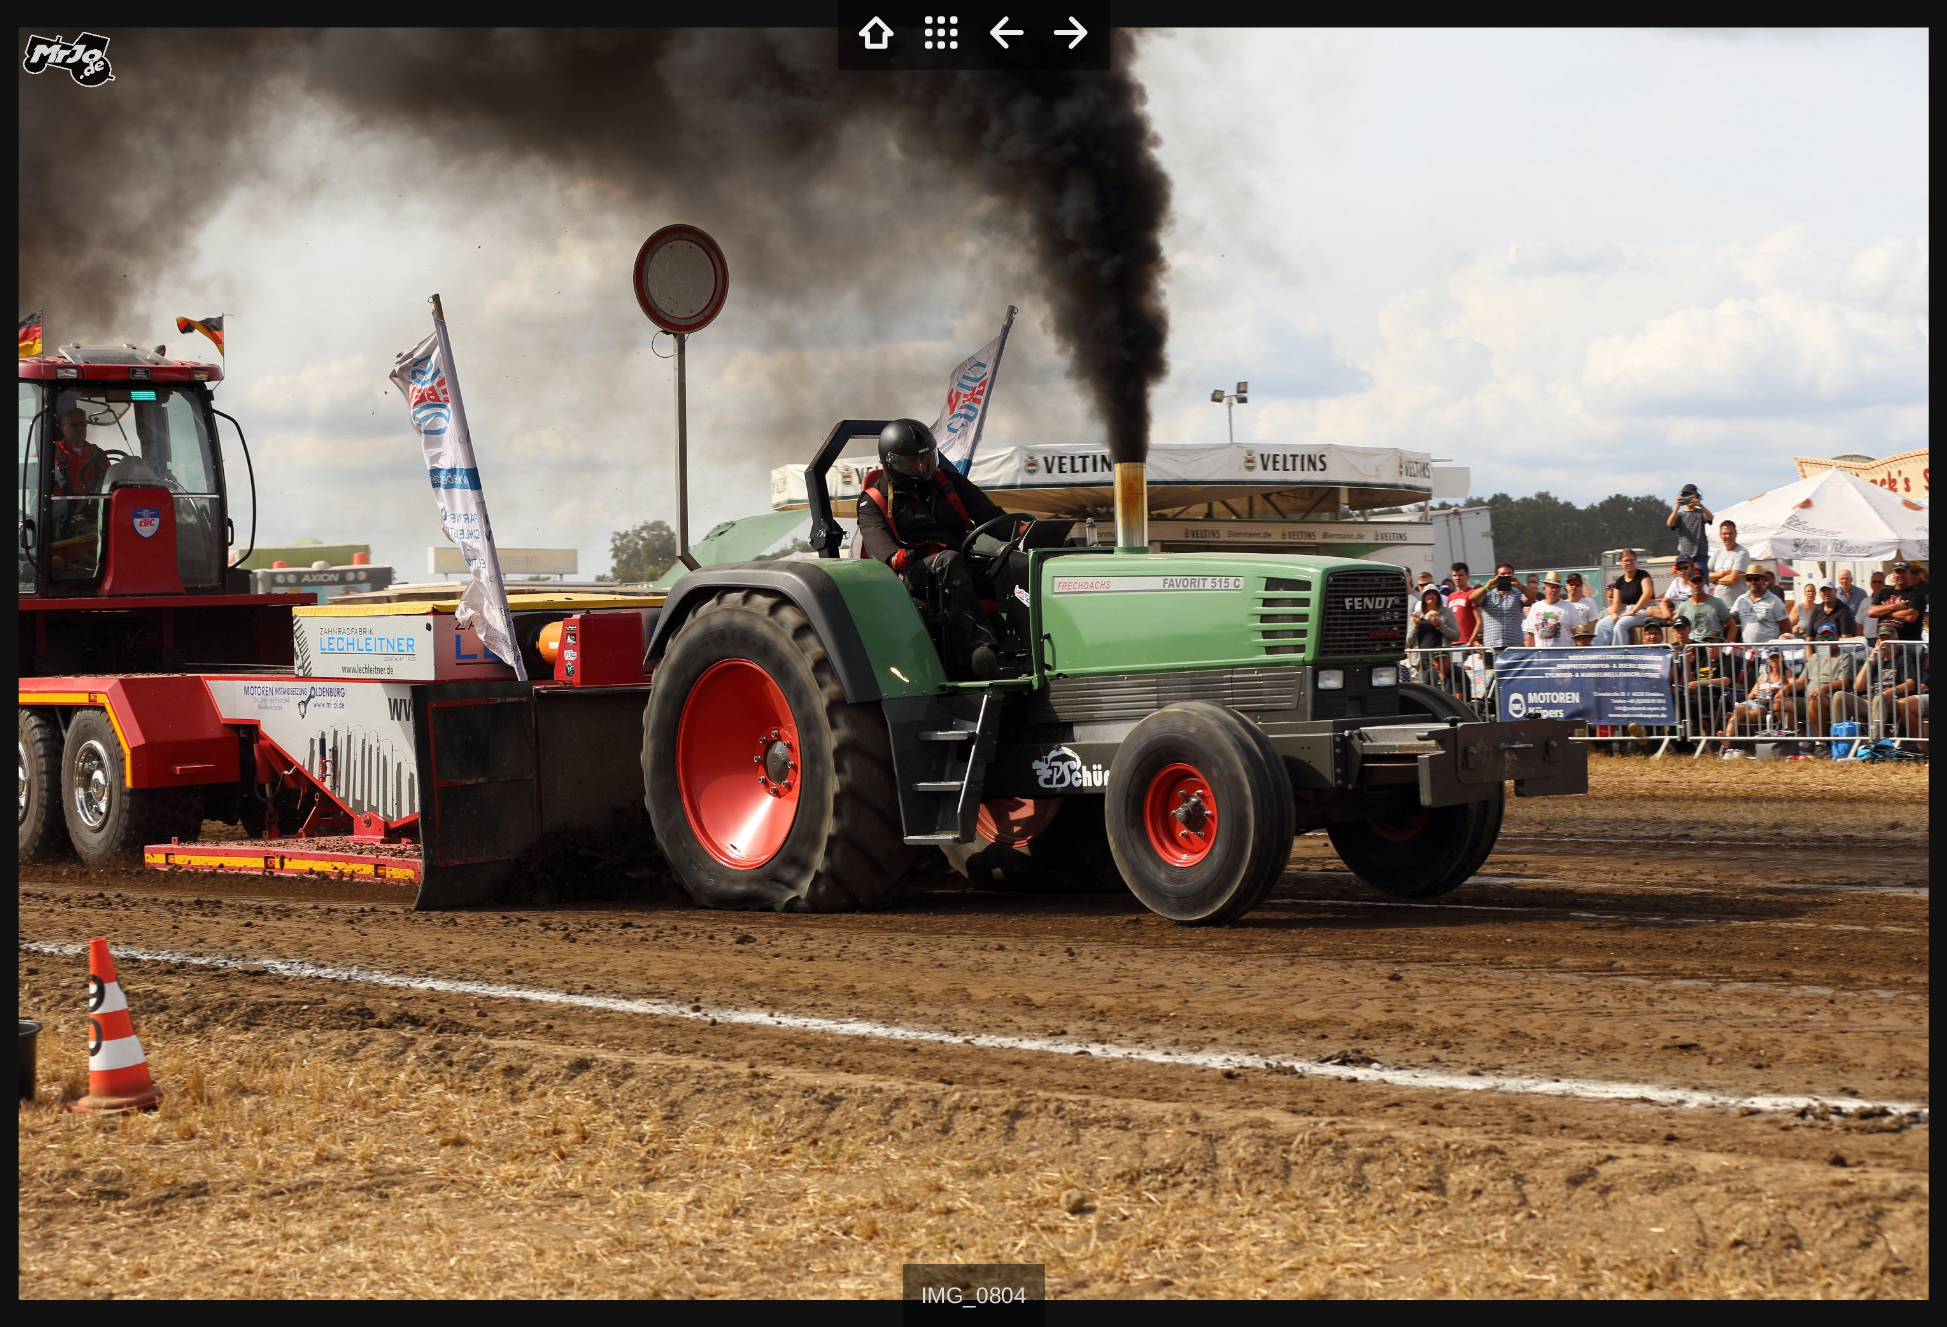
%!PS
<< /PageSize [1947 1327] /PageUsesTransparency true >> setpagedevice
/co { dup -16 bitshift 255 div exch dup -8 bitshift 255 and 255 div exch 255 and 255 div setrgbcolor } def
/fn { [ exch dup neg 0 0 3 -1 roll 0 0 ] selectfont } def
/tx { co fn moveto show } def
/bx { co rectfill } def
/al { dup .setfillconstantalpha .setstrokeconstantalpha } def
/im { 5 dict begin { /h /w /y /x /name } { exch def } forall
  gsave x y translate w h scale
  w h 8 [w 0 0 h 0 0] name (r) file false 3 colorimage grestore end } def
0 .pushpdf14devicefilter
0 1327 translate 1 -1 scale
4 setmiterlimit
0 0 1947 1327 16#111111 bx
(media/5.raw) 18 27 1911 1273 im
0.5 al
838 0 272 70 16#000000 bx
1 al
(media/1.raw) 858 16 36 33 im
(media/2.raw) 925 16 33 33 im
(media/3.raw) 990 16 34 33 im
(media/4.raw) 1053 16 35 33 im
0.5 al
903 1264 142 63 16#000000 bx
1 al
(IMG_0804) 921 1303 /LiberationSans-Regular 22.5 16#DDDDDD tx
.poppdf14devicefilter showpage
